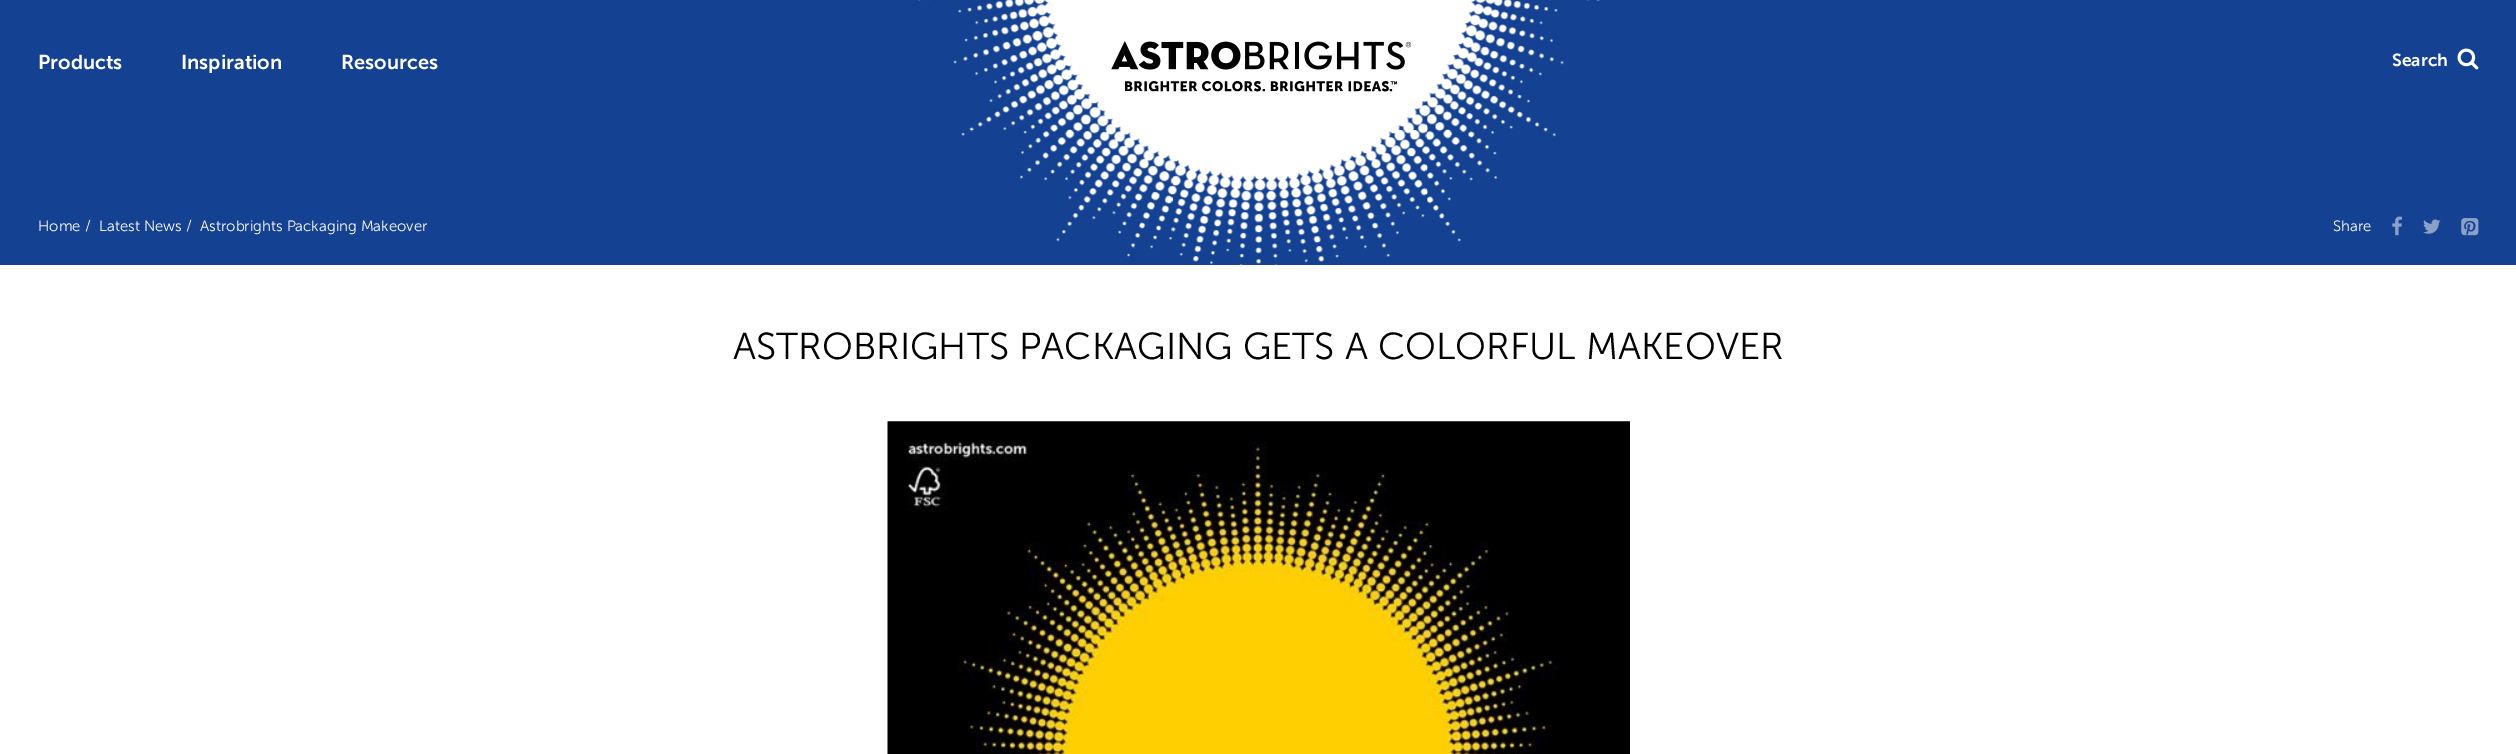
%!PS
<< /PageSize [2516 754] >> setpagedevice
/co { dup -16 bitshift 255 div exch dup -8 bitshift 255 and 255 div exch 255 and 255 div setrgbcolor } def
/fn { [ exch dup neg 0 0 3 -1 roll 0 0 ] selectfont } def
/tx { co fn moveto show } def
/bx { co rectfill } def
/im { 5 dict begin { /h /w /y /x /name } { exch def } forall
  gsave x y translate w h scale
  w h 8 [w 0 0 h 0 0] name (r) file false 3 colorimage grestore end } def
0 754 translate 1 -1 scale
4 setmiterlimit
0 0 2516 754 16#FFFFFF bx
0 0 2516 265 16#144191 bx
(media/1.raw) 918 0 682 265 im
(media/2.raw) 1111 41 300 29 im
(media/3.raw) 1125 81 273 11 im
(media/4.raw) 2457 48 22 22 im
(media/5.raw) 2392 216 10 20 im
(media/6.raw) 2423 219 18 15 im
(media/7.raw) 2461 218 18 18 im
(media/8.raw) 887 421 743 333 im
(Products) 38 69 /MuseoSans-SemiBold 20 16#FFFFFF tx
(Inspiration) 181 69 /MuseoSans-SemiBold 20 16#FFFFFF tx
(Resources) 341 69 /MuseoSans-SemiBold 20 16#FFFFFF tx
(Search) 2392 66 /MuseoSans-SemiBold 17.5 16#FFFFFF tx
(Home /) 38 231 /MuseoSans-Light 15 16#FFFFFF tx
(Latest News /) 99 231 /MuseoSans-Light 15 16#FFFFFF tx
(Astrobrights Packaging Makeover) 200 231 /MuseoSans-Light 15 16#FFFFFF tx
(Share) 2333 231 /MuseoSans-Light 15 16#FFFFFF tx
(ASTROBRIGHTS PACKAGING GETS A COLORFUL MAKEOVER) 733 359 /MuseoSans-Light 37.5 16#000000 tx
showpage
